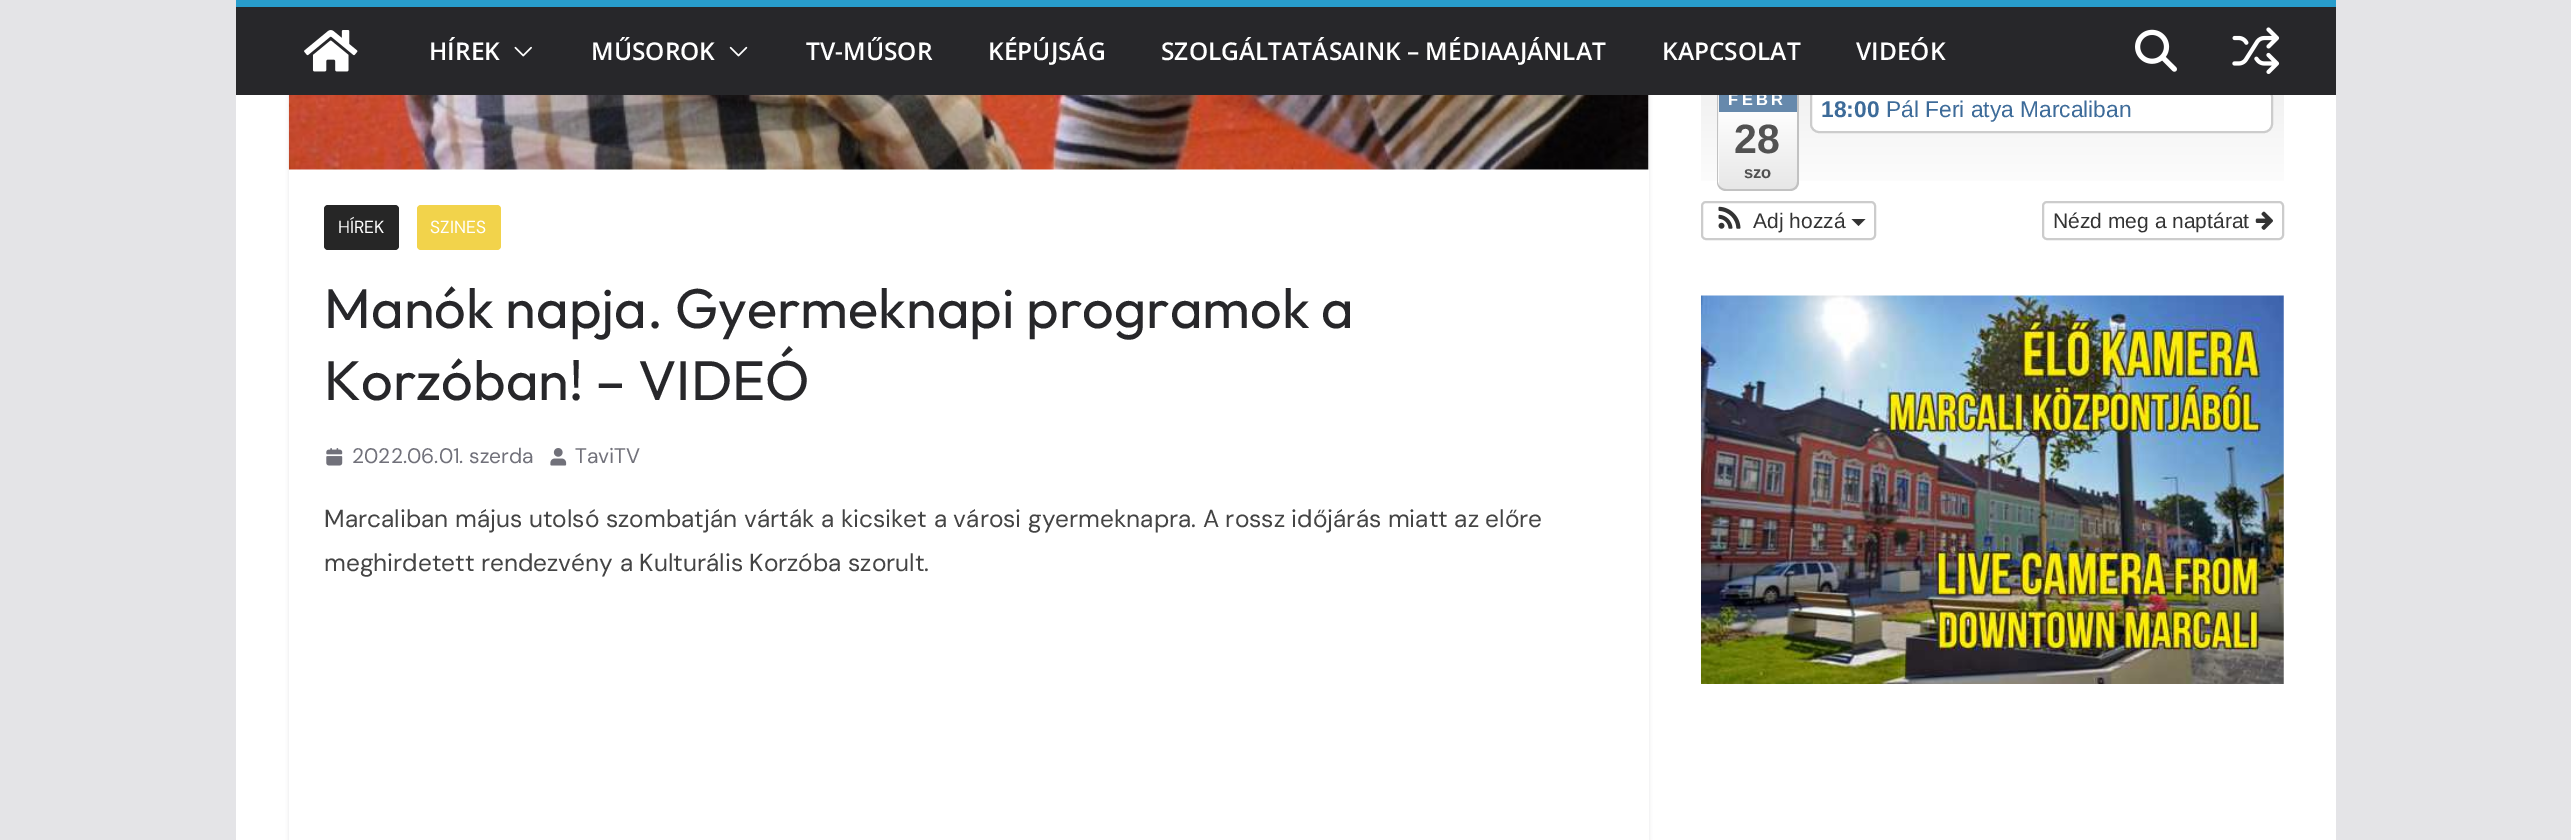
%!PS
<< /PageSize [2571 840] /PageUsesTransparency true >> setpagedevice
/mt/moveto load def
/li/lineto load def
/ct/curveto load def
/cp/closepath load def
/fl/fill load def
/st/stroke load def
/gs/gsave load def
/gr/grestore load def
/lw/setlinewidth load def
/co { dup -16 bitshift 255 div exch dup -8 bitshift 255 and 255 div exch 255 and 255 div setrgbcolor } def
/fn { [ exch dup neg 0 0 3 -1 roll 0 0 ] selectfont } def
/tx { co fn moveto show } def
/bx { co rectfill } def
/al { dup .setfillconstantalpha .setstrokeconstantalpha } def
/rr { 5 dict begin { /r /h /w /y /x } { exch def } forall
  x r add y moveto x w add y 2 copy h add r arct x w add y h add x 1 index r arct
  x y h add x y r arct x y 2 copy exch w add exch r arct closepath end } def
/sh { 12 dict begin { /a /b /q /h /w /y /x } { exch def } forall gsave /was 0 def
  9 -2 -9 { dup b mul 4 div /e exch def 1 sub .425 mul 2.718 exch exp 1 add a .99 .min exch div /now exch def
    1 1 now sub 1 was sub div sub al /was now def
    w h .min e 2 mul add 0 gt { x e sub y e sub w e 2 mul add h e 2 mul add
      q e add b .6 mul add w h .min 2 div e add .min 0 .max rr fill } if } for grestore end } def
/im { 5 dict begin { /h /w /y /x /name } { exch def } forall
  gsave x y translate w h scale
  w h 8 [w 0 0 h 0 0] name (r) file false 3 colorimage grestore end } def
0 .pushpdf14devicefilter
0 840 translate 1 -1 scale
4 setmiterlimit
0 0 2571 840 16#E4E4E7 bx
236 95 2100 745 16#FFFFFF bx
gs
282 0 mt 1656 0 li 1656 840 li 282 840 li cp 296 -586 mt 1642 -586 li 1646 -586 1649 -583 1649 -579 ct 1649 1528 li 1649 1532 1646 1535 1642 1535 ct 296 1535 li 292 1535 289 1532 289 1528 ct 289 -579 li 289 -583 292 -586 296 -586 ct cp eoclip newpath
16#E4E4E7 co
289 -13 1360 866 7 2 1 sh
gr
236 0 2100 7 16#289DCC bx
gs 1701 95 mt 2284 95 li 2284 181 li 1701 181 li cp clip newpath
<< /ShadingType 2 /ColorSpace /DeviceRGB /Coords [1992 77 1992 201] /Extend [true true] /Function << /FunctionType 3 /Domain [0 1] /Functions [<< /FunctionType 2 /Domain [0 1] /C0 [.949 .949 .949] /C1 [.949 .949 .949] /N 1 >> << /FunctionType 2 /Domain [0 1] /C0 [.949 .949 .949] /C1 [1 1 1] /N 1 >>] /Bounds [.18] /Encode [0 1 0 1] >> >> shfill gr
gs
1717 88 82 103 9 rr clip newpath
gs 1719 112 mt 1797 112 li 1797 189 li 1719 189 li cp clip newpath
<< /ShadingType 2 /ColorSpace /DeviceRGB /Coords [1758 88 1758 189] /Extend [true true] /Function << /FunctionType 3 /Domain [0 1] /Functions [<< /FunctionType 2 /Domain [0 1] /C0 [1 1 1] /C1 [1 1 1] /N 1 >> << /FunctionType 2 /Domain [0 1] /C0 [1 1 1] /C1 [.906 .906 .906] /N 1 >>] /Bounds [.2] /Encode [0 1 0 1] >> >> shfill gr
gr
16#C2C2C2 co
1726 88 mt 1790 88 li 1795 88 1799 91 1799 96 ct 1799 182 li 1799 187 1795 191 1790 191 ct 1726 191 li 1721 191 1717 187 1717 182 ct 1717 96 li 1717 91 1721 88 1726 88 ct cp 1726 88 mt 1790 88 li 1794 88 1797 91 1797 96 ct 1797 182 li 1797 186 1794 189 1790 189 ct 1726 189 li 1722 189 1718 186 1718 182 ct 1718 96 li 1718 91 1722 88 1726 88 ct cp eofill
1719 95 78 17 16#6689AC bx
16#FFFFFF co
1811 89 461 43 8 rr gs fl gr
16#CCCCCC co
2 lw
st
1702 202 173 37 4 rr st
(media/6.raw) 1718 206 23 23 im
16#333333 co
1851.5 219 mt 1865.5 219 li 1858.5 226 li cp fl
16#CCCCCC co
2043 202 240 37 4 rr st
(media/7.raw) 2255 211 18 19 im
(media/8.raw) 1701 295 583 389 im
(media/9.raw) 288 95 1361 75 im
16#262626 co
324 205 75 45 4 rr fl
16#F2D34B co
417 205 84 45 4 rr fl
(media/10.raw) 326 448 17 18 im
(media/11.raw) 550 448 17 18 im
/LiberationSans-Bold 16.5 fn
16#FFFFFF co
1728 105 mt 3.5 0 (FEBR) ashow
236 7 2100 88 16#27272A bx
(VIDEÓK) 1856 60 /OpenSans-SemiBold 24.5 16#FFFFFF tx
(KAPCSOLAT) 1662 60 /OpenSans-SemiBold 24.5 16#FFFFFF tx
(SZOLGÁLTATÁSAINK – MÉDIAAJÁNLAT) 1161 60 /OpenSans-SemiBold 24.5 16#FFFFFF tx
(KÉPÚJSÁG) 988 60 /OpenSans-SemiBold 24.5 16#FFFFFF tx
(TV-MŰSOR) 806 60 /OpenSans-SemiBold 24.5 16#FFFFFF tx
(media/3.raw) 729 46 19 11 im
(MŰSOROK) 591 60 /OpenSans-SemiBold 24.5 16#FFFFFF tx
(media/2.raw) 514 46 18 11 im
(HÍREK) 429 60 /OpenSans-SemiBold 24.5 16#FFFFFF tx
(media/4.raw) 2135 29 42 43 im
(media/5.raw) 2232 27 48 47 im
(media/1.raw) 304 30 54 42 im
(28) 1734 153 /LiberationSans-Bold 41 16#525252 tx
(szo) 1744 178 /LiberationSans-Bold 16.5 16#525252 tx
(18:00) 1821 117 /LiberationSans-Bold 22.75 16#3D6B99 tx
(Pál Feri atya Marcaliban) 1886 117 /LiberationSans-Regular 22.75 16#3D6B99 tx
(Adj hozzá) 1753 228 /LiberationSans-Regular 21 16#333333 tx
(Nézd meg a naptárat) 2053 228 /LiberationSans-Regular 21 16#333333 tx
(HÍREK) 338 233 /DMSans-Regular 17.5 16#FFFFFF tx
(SZINES) 430 233 /DMSans-Regular 17.5 16#FFFFFF tx
(Manók napja. Gyermeknapi programok a) 324 328 /Outfit-Thin 56 16#27272A tx
(Korzóban! – VIDEÓ) 324 400 /Outfit-Thin 56 16#27272A tx
(2022.06.01. szerda) 352 463 /DMSans-Regular 21 16#71717A tx
(TaviTV) 575 463 /DMSans-Regular 21 16#71717A tx
(Marcaliban május utolsó szombatján várták a kicsiket a városi gyermeknapra. A rossz időjárás miatt az előre) 324 527 /DMSans-Regular 24.5 16#444444 tx
(meghirdetett rendezvény a Kulturális Korzóba szorult.) 324 571 /DMSans-Regular 24.5 16#444444 tx
.poppdf14devicefilter showpage
